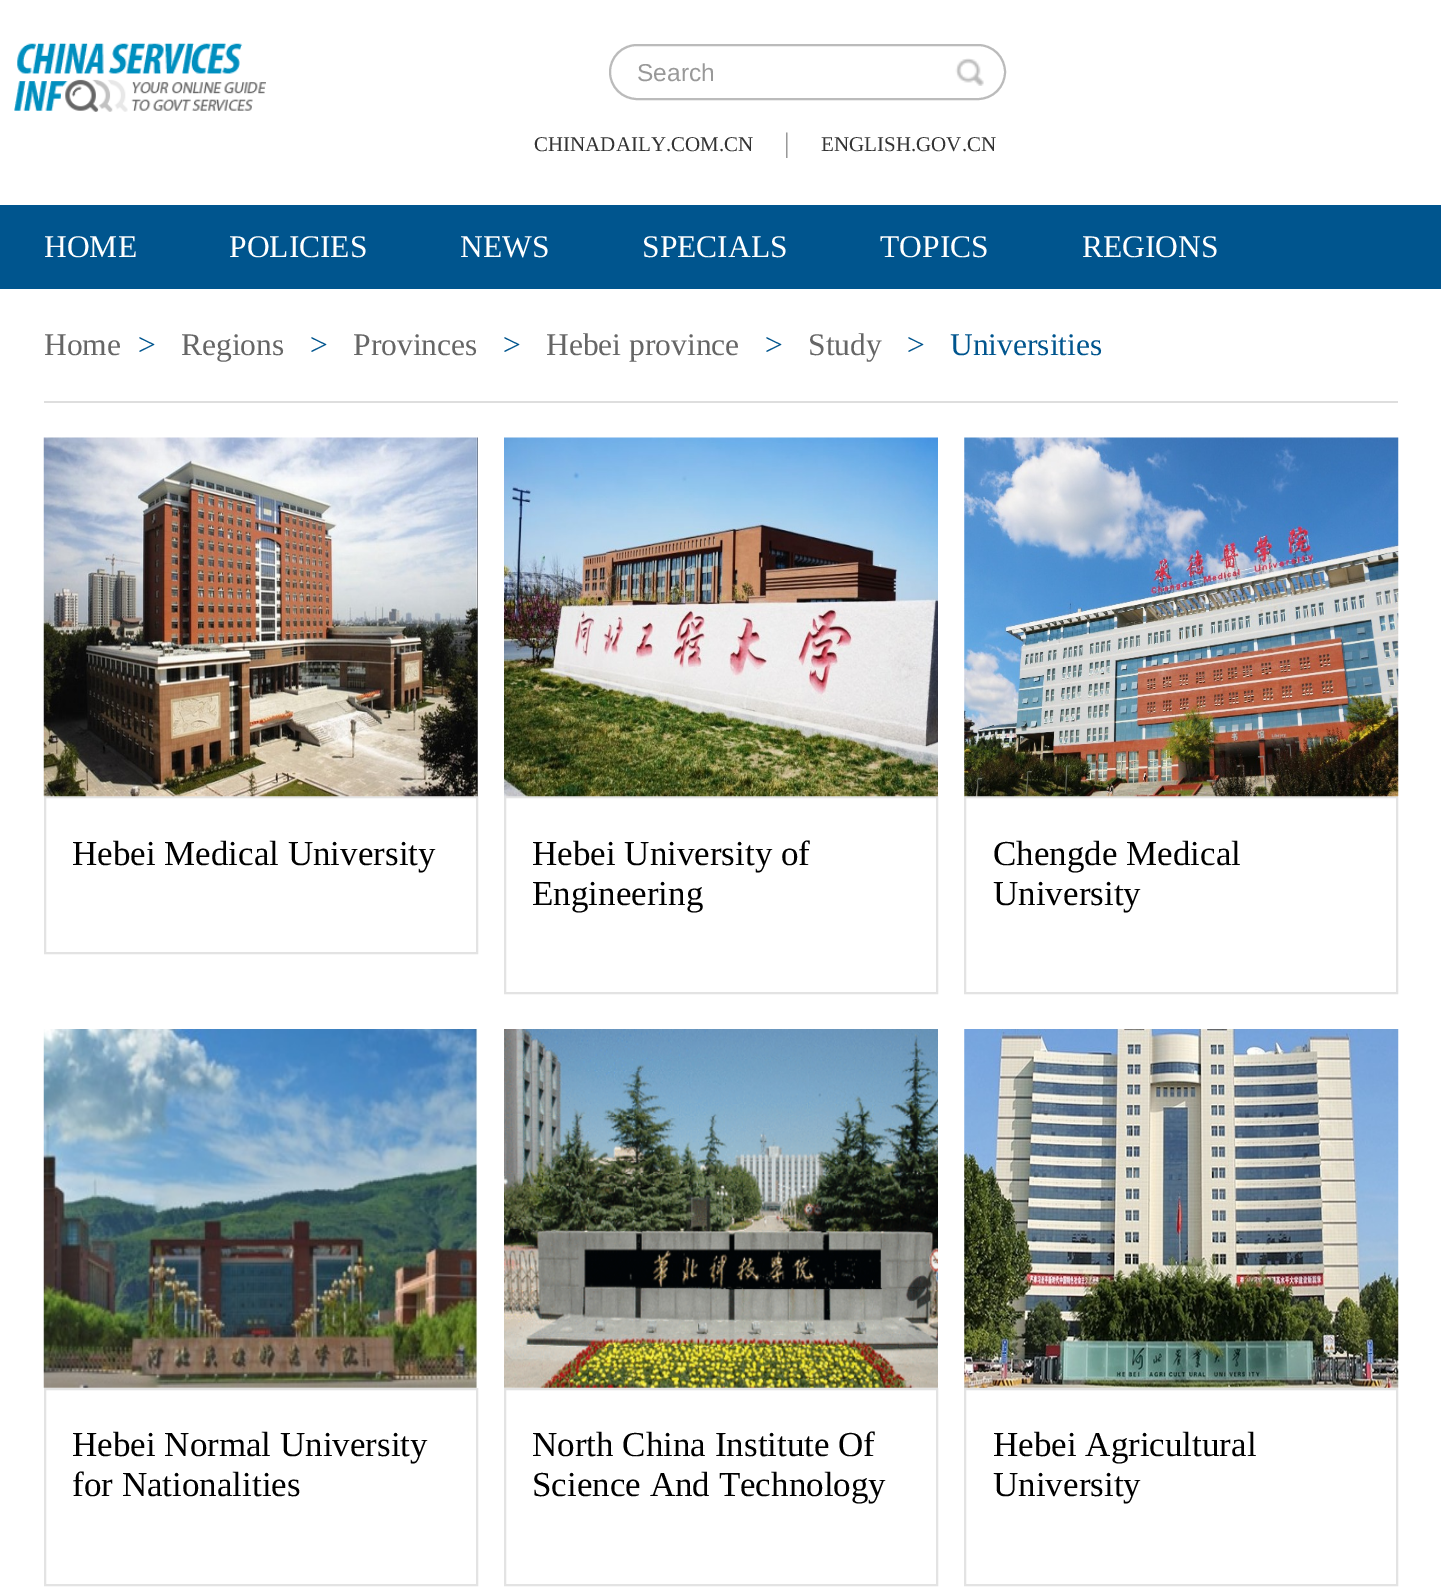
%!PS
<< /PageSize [1441 1596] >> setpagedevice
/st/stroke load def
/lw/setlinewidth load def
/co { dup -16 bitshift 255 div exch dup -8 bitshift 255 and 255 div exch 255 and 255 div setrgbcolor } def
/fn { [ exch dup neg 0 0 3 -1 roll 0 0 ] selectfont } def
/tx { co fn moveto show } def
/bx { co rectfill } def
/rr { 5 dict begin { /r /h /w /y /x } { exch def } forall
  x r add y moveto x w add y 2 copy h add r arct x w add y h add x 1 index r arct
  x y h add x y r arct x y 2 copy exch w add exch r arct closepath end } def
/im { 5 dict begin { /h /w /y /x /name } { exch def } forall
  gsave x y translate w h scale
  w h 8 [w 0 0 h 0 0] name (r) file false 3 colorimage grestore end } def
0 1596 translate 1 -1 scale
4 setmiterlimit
0 0 1441 1596 16#FFFFFF bx
(media/1.raw) 14 43 252 69 im
16#BBBBBB co
2 lw
610 45 395 54 27 rr st
(media/2.raw) 955 58 29 28 im
0 205 1441 84 16#00558E bx
44 401 1354 2 16#DEDEDE bx
16#E3E3E3 co
45 797 432 156 rectstroke
(media/3.raw) 43 437 435 360 im
505 797 432 196 rectstroke
(media/4.raw) 504 437 434 360 im
965 797 432 196 rectstroke
(media/5.raw) 964 437 435 360 im
(media/6.raw) 43 1029 435 359 im
45 1389 432 196 rectstroke
(media/7.raw) 504 1029 434 359 im
505 1389 432 196 rectstroke
(media/8.raw) 964 1029 435 359 im
965 1389 432 196 rectstroke
(Search) 637 81 /LiberationSans-Regular 24.5 16#999999 tx
(CHINADAILY.COM.CN) 534 151 /LiberationSerif-Regular 21 16#333333 tx
(|) 784 152 /LiberationSerif-Regular 28 16#999999 tx
(ENGLISH.GOV.CN) 821 151 /LiberationSerif-Regular 21 16#333333 tx
(HOME) 44 257 /LiberationSerif-Regular 31.5 16#FFFFFF tx
(POLICIES) 229 257 /LiberationSerif-Regular 31.5 16#FFFFFF tx
(NEWS) 460 257 /LiberationSerif-Regular 31.5 16#FFFFFF tx
(SPECIALS) 642 257 /LiberationSerif-Regular 31.5 16#FFFFFF tx
(TOPICS) 880 257 /LiberationSerif-Regular 31.5 16#FFFFFF tx
(REGIONS) 1082 257 /LiberationSerif-Regular 31.5 16#FFFFFF tx
(Home) 44 355 /LiberationSerif-Regular 31.5 16#666666 tx
(>) 138 355 /LiberationSerif-Regular 31.5 16#00558E tx
(Regions) 181 355 /LiberationSerif-Regular 31.5 16#666666 tx
(>) 310 355 /LiberationSerif-Regular 31.5 16#00558E tx
(Provinces) 353 355 /LiberationSerif-Regular 31.5 16#666666 tx
(>) 503 355 /LiberationSerif-Regular 31.5 16#00558E tx
(Hebei province) 546 355 /LiberationSerif-Regular 31.5 16#666666 tx
(>) 765 355 /LiberationSerif-Regular 31.5 16#00558E tx
(Study) 808 355 /LiberationSerif-Regular 31.5 16#666666 tx
(>) 907 355 /LiberationSerif-Regular 31.5 16#00558E tx
(Universities) 950 355 /LiberationSerif-Regular 31.5 16#00558E tx
(Hebei Medical University) 72 865 /LiberationSerif-Regular 35 16#000000 tx
(Hebei University of) 532 865 /LiberationSerif-Regular 35 16#000000 tx
(Engineering) 532 905 /LiberationSerif-Regular 35 16#000000 tx
(Chengde Medical) 993 865 /LiberationSerif-Regular 35 16#000000 tx
(University) 993 905 /LiberationSerif-Regular 35 16#000000 tx
(Hebei Normal University) 72 1456 /LiberationSerif-Regular 35 16#000000 tx
(for Nationalities) 72 1496 /LiberationSerif-Regular 35 16#000000 tx
(North China Institute Of) 532 1456 /LiberationSerif-Regular 35 16#000000 tx
(Science And Technology) 532 1496 /LiberationSerif-Regular 35 16#000000 tx
(Hebei Agricultural) 993 1456 /LiberationSerif-Regular 35 16#000000 tx
(University) 993 1496 /LiberationSerif-Regular 35 16#000000 tx
showpage
